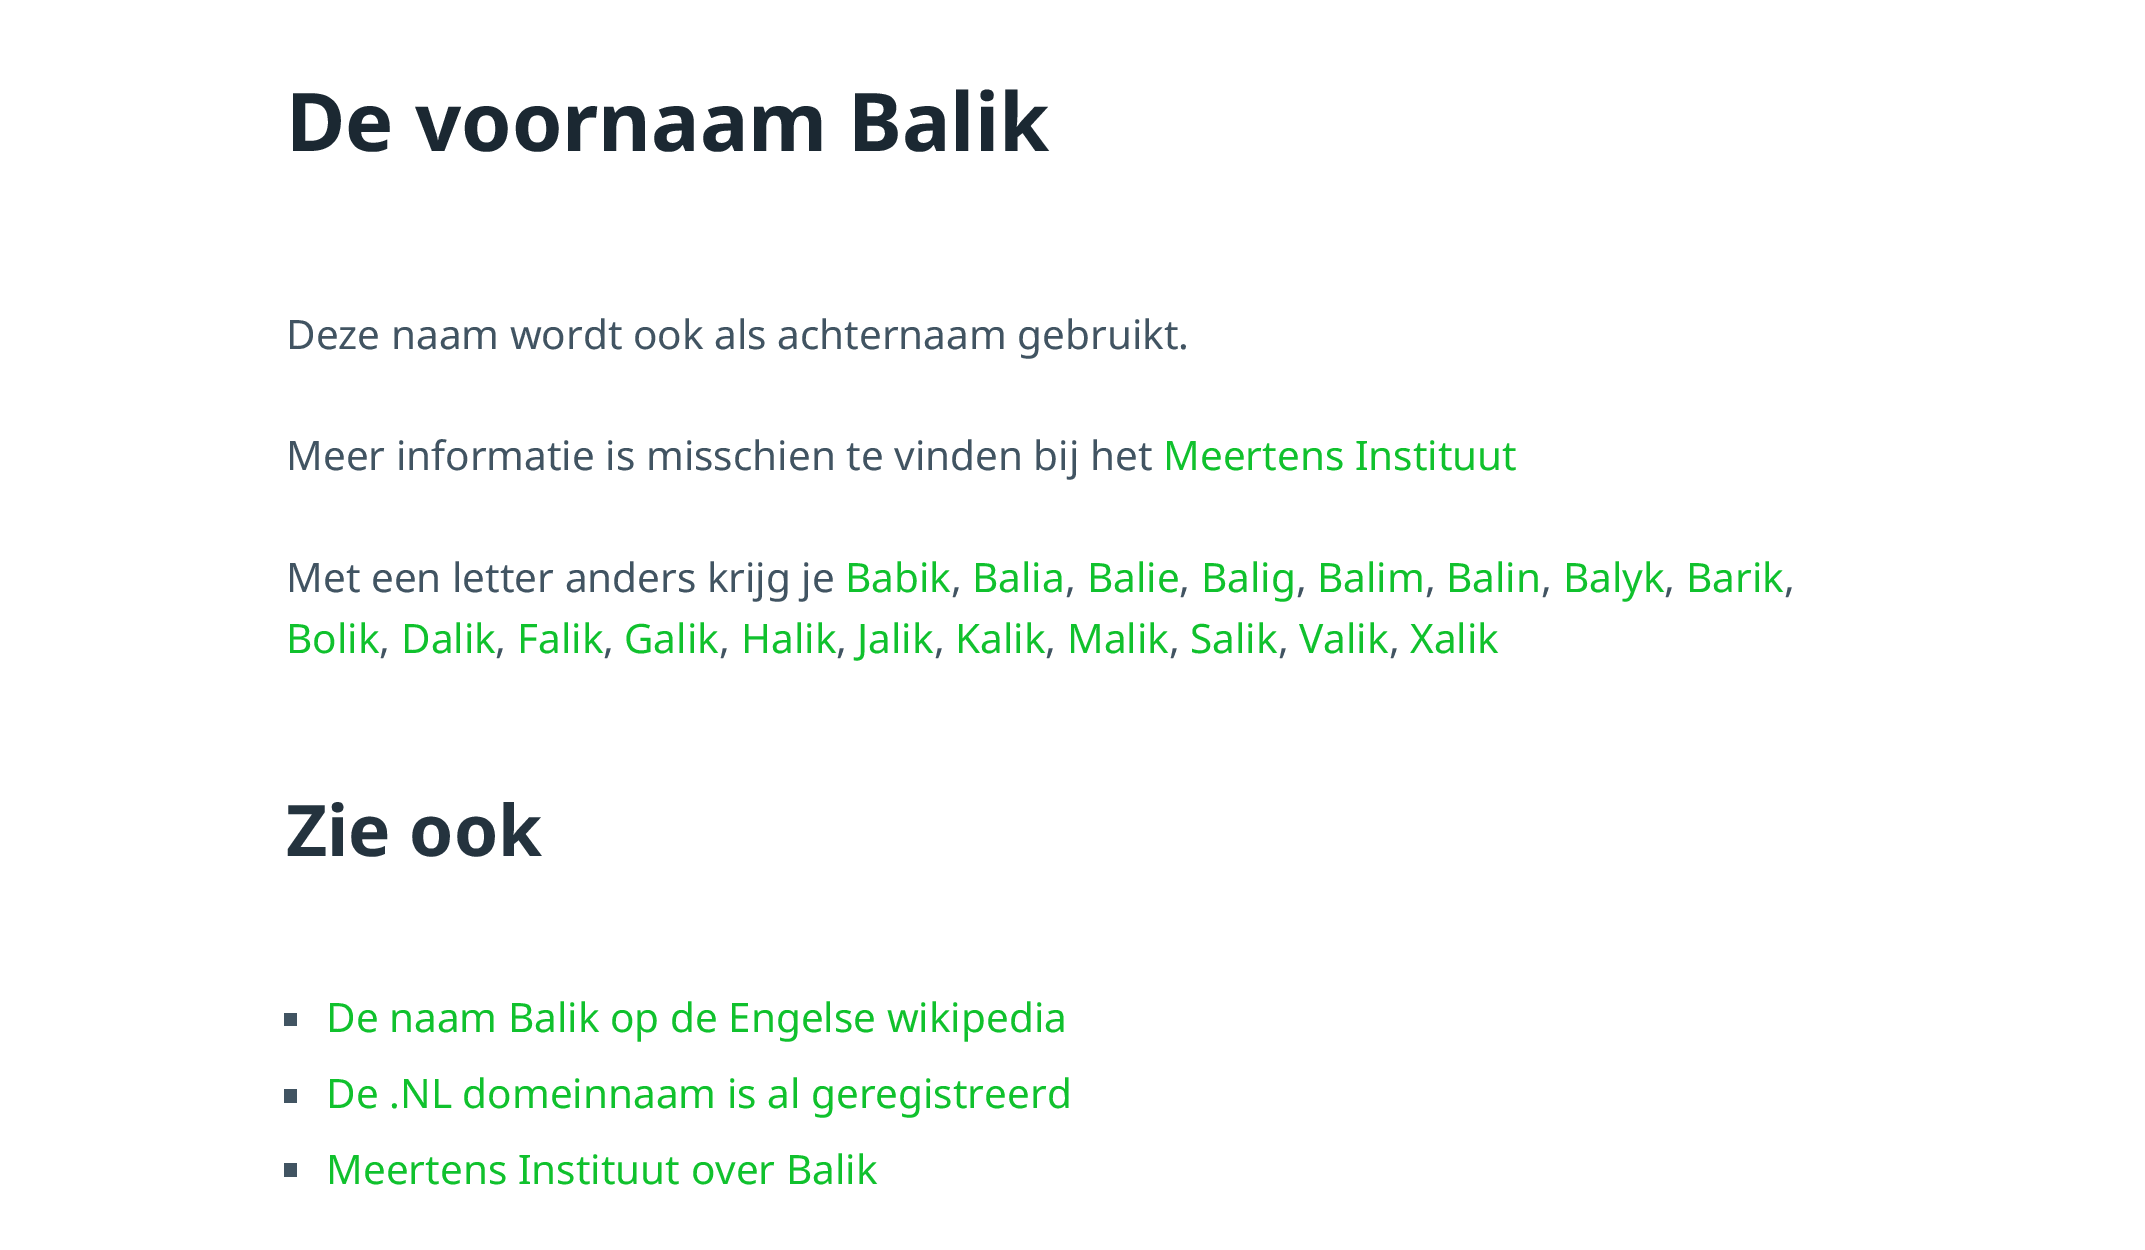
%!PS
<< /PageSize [2145 1250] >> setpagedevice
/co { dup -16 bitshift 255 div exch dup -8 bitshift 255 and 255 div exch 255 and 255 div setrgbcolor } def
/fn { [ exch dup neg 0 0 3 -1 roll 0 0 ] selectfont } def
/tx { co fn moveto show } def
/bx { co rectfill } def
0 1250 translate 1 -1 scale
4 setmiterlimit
0 0 2145 1250 16#FFFFFF bx
284 1013 13 13 16#415462 bx
284 1089 13 14 16#415462 bx
284 1163 13 14 16#415462 bx
(De voornaam Balik) 286 151 /NotoSans-Bold 81 16#1B2832 tx
(Deze naam wordt ook als achternaam gebruikt.) 286 349 /NotoSans-Regular 40.5 16#415462 tx
(Meer informatie is misschien te vinden bij het) 286 470 /NotoSans-Regular 40.5 16#415462 tx
(Meertens Instituut) 1163 470 /NotoSans-Regular 40.5 16#10C12D tx
(Met een letter anders krijg je) 286 592 /NotoSans-Regular 40.5 16#415462 tx
(Babik) 845 592 /NotoSans-Regular 40.5 16#10C12D tx
(,) 951 592 /NotoSans-Regular 40.5 16#415462 tx
(Balia) 972 592 /NotoSans-Regular 40.5 16#10C12D tx
(,) 1065 592 /NotoSans-Regular 40.5 16#415462 tx
(Balie) 1087 592 /NotoSans-Regular 40.5 16#10C12D tx
(,) 1179 592 /NotoSans-Regular 40.5 16#415462 tx
(Balig) 1201 592 /NotoSans-Regular 40.5 16#10C12D tx
(,) 1296 592 /NotoSans-Regular 40.5 16#415462 tx
(Balim) 1317 592 /NotoSans-Regular 40.5 16#10C12D tx
(,) 1425 592 /NotoSans-Regular 40.5 16#415462 tx
(Balin) 1446 592 /NotoSans-Regular 40.5 16#10C12D tx
(,) 1541 592 /NotoSans-Regular 40.5 16#415462 tx
(Balyk) 1563 592 /NotoSans-Regular 40.5 16#10C12D tx
(,) 1664 592 /NotoSans-Regular 40.5 16#415462 tx
(Barik) 1686 592 /NotoSans-Regular 40.5 16#10C12D tx
(,) 1784 592 /NotoSans-Regular 40.5 16#415462 tx
(Bolik) 286 653 /NotoSans-Regular 40.5 16#10C12D tx
(,) 379 653 /NotoSans-Regular 40.5 16#415462 tx
(Dalik) 401 653 /NotoSans-Regular 40.5 16#10C12D tx
(,) 495 653 /NotoSans-Regular 40.5 16#415462 tx
(Falik) 517 653 /NotoSans-Regular 40.5 16#10C12D tx
(,) 603 653 /NotoSans-Regular 40.5 16#415462 tx
(Galik) 624 653 /NotoSans-Regular 40.5 16#10C12D tx
(,) 719 653 /NotoSans-Regular 40.5 16#415462 tx
(Halik) 741 653 /NotoSans-Regular 40.5 16#10C12D tx
(,) 836 653 /NotoSans-Regular 40.5 16#415462 tx
(Jalik) 857 653 /NotoSans-Regular 40.5 16#10C12D tx
(,) 934 653 /NotoSans-Regular 40.5 16#415462 tx
(Kalik) 955 653 /NotoSans-Regular 40.5 16#10C12D tx
(,) 1045 653 /NotoSans-Regular 40.5 16#415462 tx
(Malik) 1067 653 /NotoSans-Regular 40.5 16#10C12D tx
(,) 1169 653 /NotoSans-Regular 40.5 16#415462 tx
(Salik) 1190 653 /NotoSans-Regular 40.5 16#10C12D tx
(,) 1278 653 /NotoSans-Regular 40.5 16#415462 tx
(Valik) 1299 653 /NotoSans-Regular 40.5 16#10C12D tx
(,) 1389 653 /NotoSans-Regular 40.5 16#415462 tx
(Xalik) 1410 653 /NotoSans-Regular 40.5 16#10C12D tx
(Zie ook) 286 856 /NotoSans-Bold 71 16#24333E tx
(De naam Balik op de Engelse wikipedia) 326 1032 /NotoSans-Regular 40.5 16#10C12D tx
(De .NL domeinnaam is al geregistreerd) 326 1108 /NotoSans-Regular 40.5 16#10C12D tx
(Meertens Instituut over Balik) 326 1184 /NotoSans-Regular 40.5 16#10C12D tx
showpage
